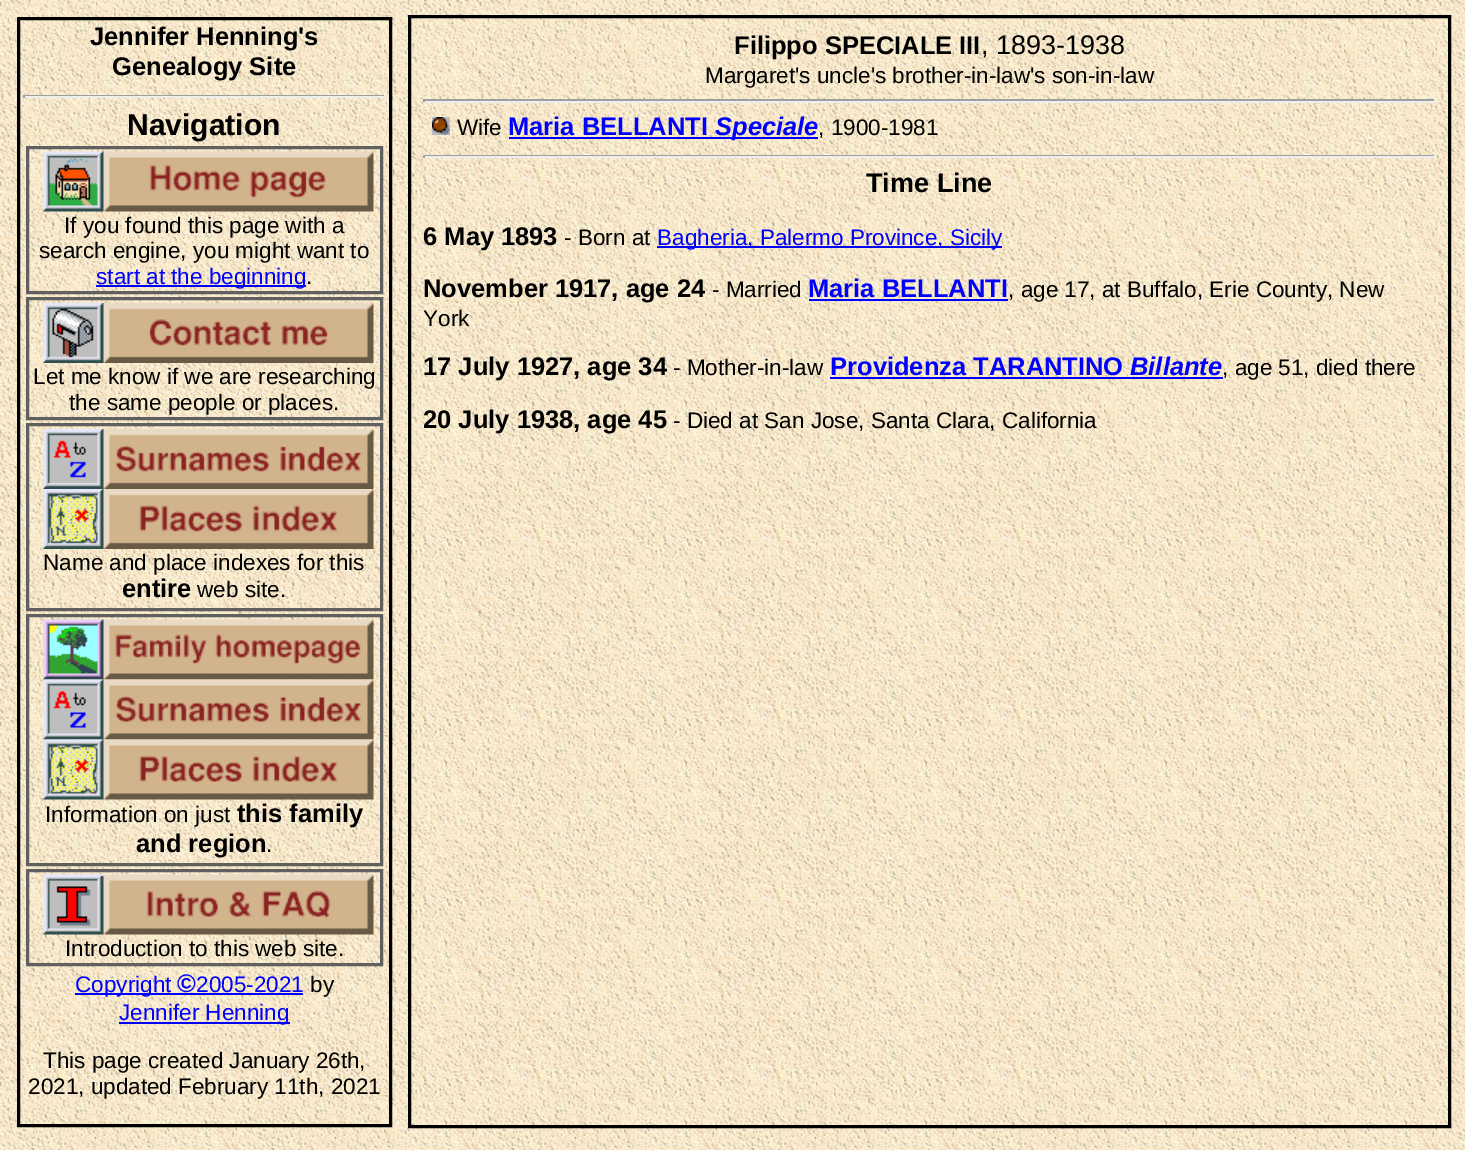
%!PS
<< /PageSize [1465 1150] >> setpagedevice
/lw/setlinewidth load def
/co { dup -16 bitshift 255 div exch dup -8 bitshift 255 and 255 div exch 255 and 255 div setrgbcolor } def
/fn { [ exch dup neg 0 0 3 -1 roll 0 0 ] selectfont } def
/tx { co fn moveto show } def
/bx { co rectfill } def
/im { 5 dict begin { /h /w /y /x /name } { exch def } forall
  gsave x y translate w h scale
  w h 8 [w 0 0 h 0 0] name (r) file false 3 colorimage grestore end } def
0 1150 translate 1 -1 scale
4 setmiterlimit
0 0 1465 1150 16#FFFFFF bx
(media/1.raw) 0 0 1465 1150 im
16#000000 co
3 lw
18.5 18.5 372 1107 rectstroke
23 95 363 1 16#9F9F9F bx
384 95 2 3 16#EEEEEE bx
23 96 363 2 16#EEEEEE bx
23 95 2 3 16#9F9F9F bx
16#606060 co
27.5 147.5 354 145 rectstroke
(media/2.raw) 43 151 331 61 im
96 285 210 2 16#0000FF bx
16#606060 co
27.5 298.5 354 120 rectstroke
(media/3.raw) 43 303 331 60 im
27.5 424.5 354 185 rectstroke
(media/4.raw) 43 429 331 60 im
(media/5.raw) 43 489 331 60 im
27.5 615.5 354 249 rectstroke
(media/6.raw) 43 619 331 61 im
(media/7.raw) 43 679 331 61 im
(media/8.raw) 43 739 331 61 im
27.5 870.5 354 94 rectstroke
(media/9.raw) 43 874 331 61 im
75 993 228 2 16#0000FF bx
119 1022 171 2 16#0000FF bx
16#000000 co
409.5 16.5 1040 1110 rectstroke
423 99 1013 2 16#9F9F9F bx
1434 99 2 3 16#EEEEEE bx
423 101 1013 2 16#EEEEEE bx
423 99 2 3 16#9F9F9F bx
(media/10.raw) 432 117 18 18 im
509 137 309 2 16#0000FF bx
423 155 1013 1 16#9F9F9F bx
1434 155 2 3 16#EEEEEE bx
423 156 1013 2 16#EEEEEE bx
423 155 2 3 16#9F9F9F bx
657 246 345 2 16#0000FF bx
809 299 199 2 16#0000FF bx
830 377 393 2 16#0000FF bx
(Jennifer Henning's) 90 45 /LiberationSans-Bold 25.5 16#000000 tx
(Genealogy Site) 112 75 /LiberationSans-Bold 25.5 16#000000 tx
(Navigation) 127 135 /LiberationSans-Bold 30 16#000000 tx
(If you found this page with a) 64 233 /LiberationSans-Regular 22.5 16#000000 tx
(search engine, you might want to) 39 258 /LiberationSans-Regular 22.5 16#000000 tx
(start at the beginning) 96 284 /LiberationSans-Regular 22.5 16#0000FF tx
(.) 306 284 /LiberationSans-Regular 22.5 16#000000 tx
(Let me know if we are researching) 33 384 /LiberationSans-Regular 22.5 16#000000 tx
(the same people or places.) 69 410 /LiberationSans-Regular 22.5 16#000000 tx
(Name and place indexes for this) 43 570 /LiberationSans-Regular 22.5 16#000000 tx
(entire) 122 597 /LiberationSans-Bold 25.5 16#000000 tx
(web site.) 197 597 /LiberationSans-Regular 22.5 16#000000 tx
(Information on just) 45 822 /LiberationSans-Regular 22.5 16#000000 tx
(this family) 237 822 /LiberationSans-Bold 25.5 16#000000 tx
(and region) 136 852 /LiberationSans-Bold 25.5 16#000000 tx
(.) 266 852 /LiberationSans-Regular 22.5 16#000000 tx
(Introduction to this web site.) 65 956 /LiberationSans-Regular 22.5 16#000000 tx
(Copyright) 75 992 /LiberationSans-Regular 22.5 16#0000FF tx
(©) 177 992 /LiberationSans-Bold 25.5 16#0000FF tx
(2005-2021) 196 992 /LiberationSans-Regular 22.5 16#0000FF tx
(by) 310 992 /LiberationSans-Regular 22.5 16#000000 tx
(Jennifer Henning) 119 1020 /LiberationSans-Regular 22.5 16#0000FF tx
(This page created January 26th,) 43 1068 /LiberationSans-Regular 22.5 16#000000 tx
(2021, updated February 11th, 2021) 28 1094 /LiberationSans-Regular 22.5 16#000000 tx
(Filippo SPECIALE III) 734 54 /LiberationSans-Bold 25.5 16#000000 tx
(, 1893-1938) 981 54 /LiberationSans-Regular 27 16#000000 tx
(Margaret's uncle's brother-in-law's son-in-law) 705 83 /LiberationSans-Regular 22.5 16#000000 tx
(Wife) 457 135 /LiberationSans-Regular 22.5 16#000000 tx
(Maria BELLANTI) 508 135 /LiberationSans-Bold 25.5 16#0000FF tx
(Speciale) 715 135 /LiberationSans-BoldItalic 25.5 16#0000FF tx
(, 1900-1981) 818 135 /LiberationSans-Regular 22.5 16#000000 tx
(Time Line) 866 192 /LiberationSans-Bold 27 16#000000 tx
(6 May 1893) 423 245 /LiberationSans-Bold 25.5 16#000000 tx
(- Born at) 564 245 /LiberationSans-Regular 22.5 16#000000 tx
(Bagheria, Palermo Province, Sicily) 657 245 /LiberationSans-Regular 22.5 16#0000FF tx
(November 1917, age 24) 423 297 /LiberationSans-Bold 25.5 16#000000 tx
(- Married) 712 297 /LiberationSans-Regular 22.5 16#000000 tx
(Maria BELLANTI) 808 297 /LiberationSans-Bold 25.5 16#0000FF tx
(, age 17, at Buffalo, Erie County, New) 1008 297 /LiberationSans-Regular 22.5 16#000000 tx
(York) 423 326 /LiberationSans-Regular 22.5 16#000000 tx
(17 July 1927, age 34) 423 375 /LiberationSans-Bold 25.5 16#000000 tx
(- Mother-in-law) 673 375 /LiberationSans-Regular 22.5 16#000000 tx
(Providenza TARANTINO) 830 375 /LiberationSans-Bold 25.5 16#0000FF tx
(Billante) 1130 375 /LiberationSans-BoldItalic 25.5 16#0000FF tx
(, age 51, died there) 1222 375 /LiberationSans-Regular 22.5 16#000000 tx
(20 July 1938, age 45) 423 428 /LiberationSans-Bold 25.5 16#000000 tx
(- Died at San Jose, Santa Clara, California) 673 428 /LiberationSans-Regular 22.5 16#000000 tx
showpage
